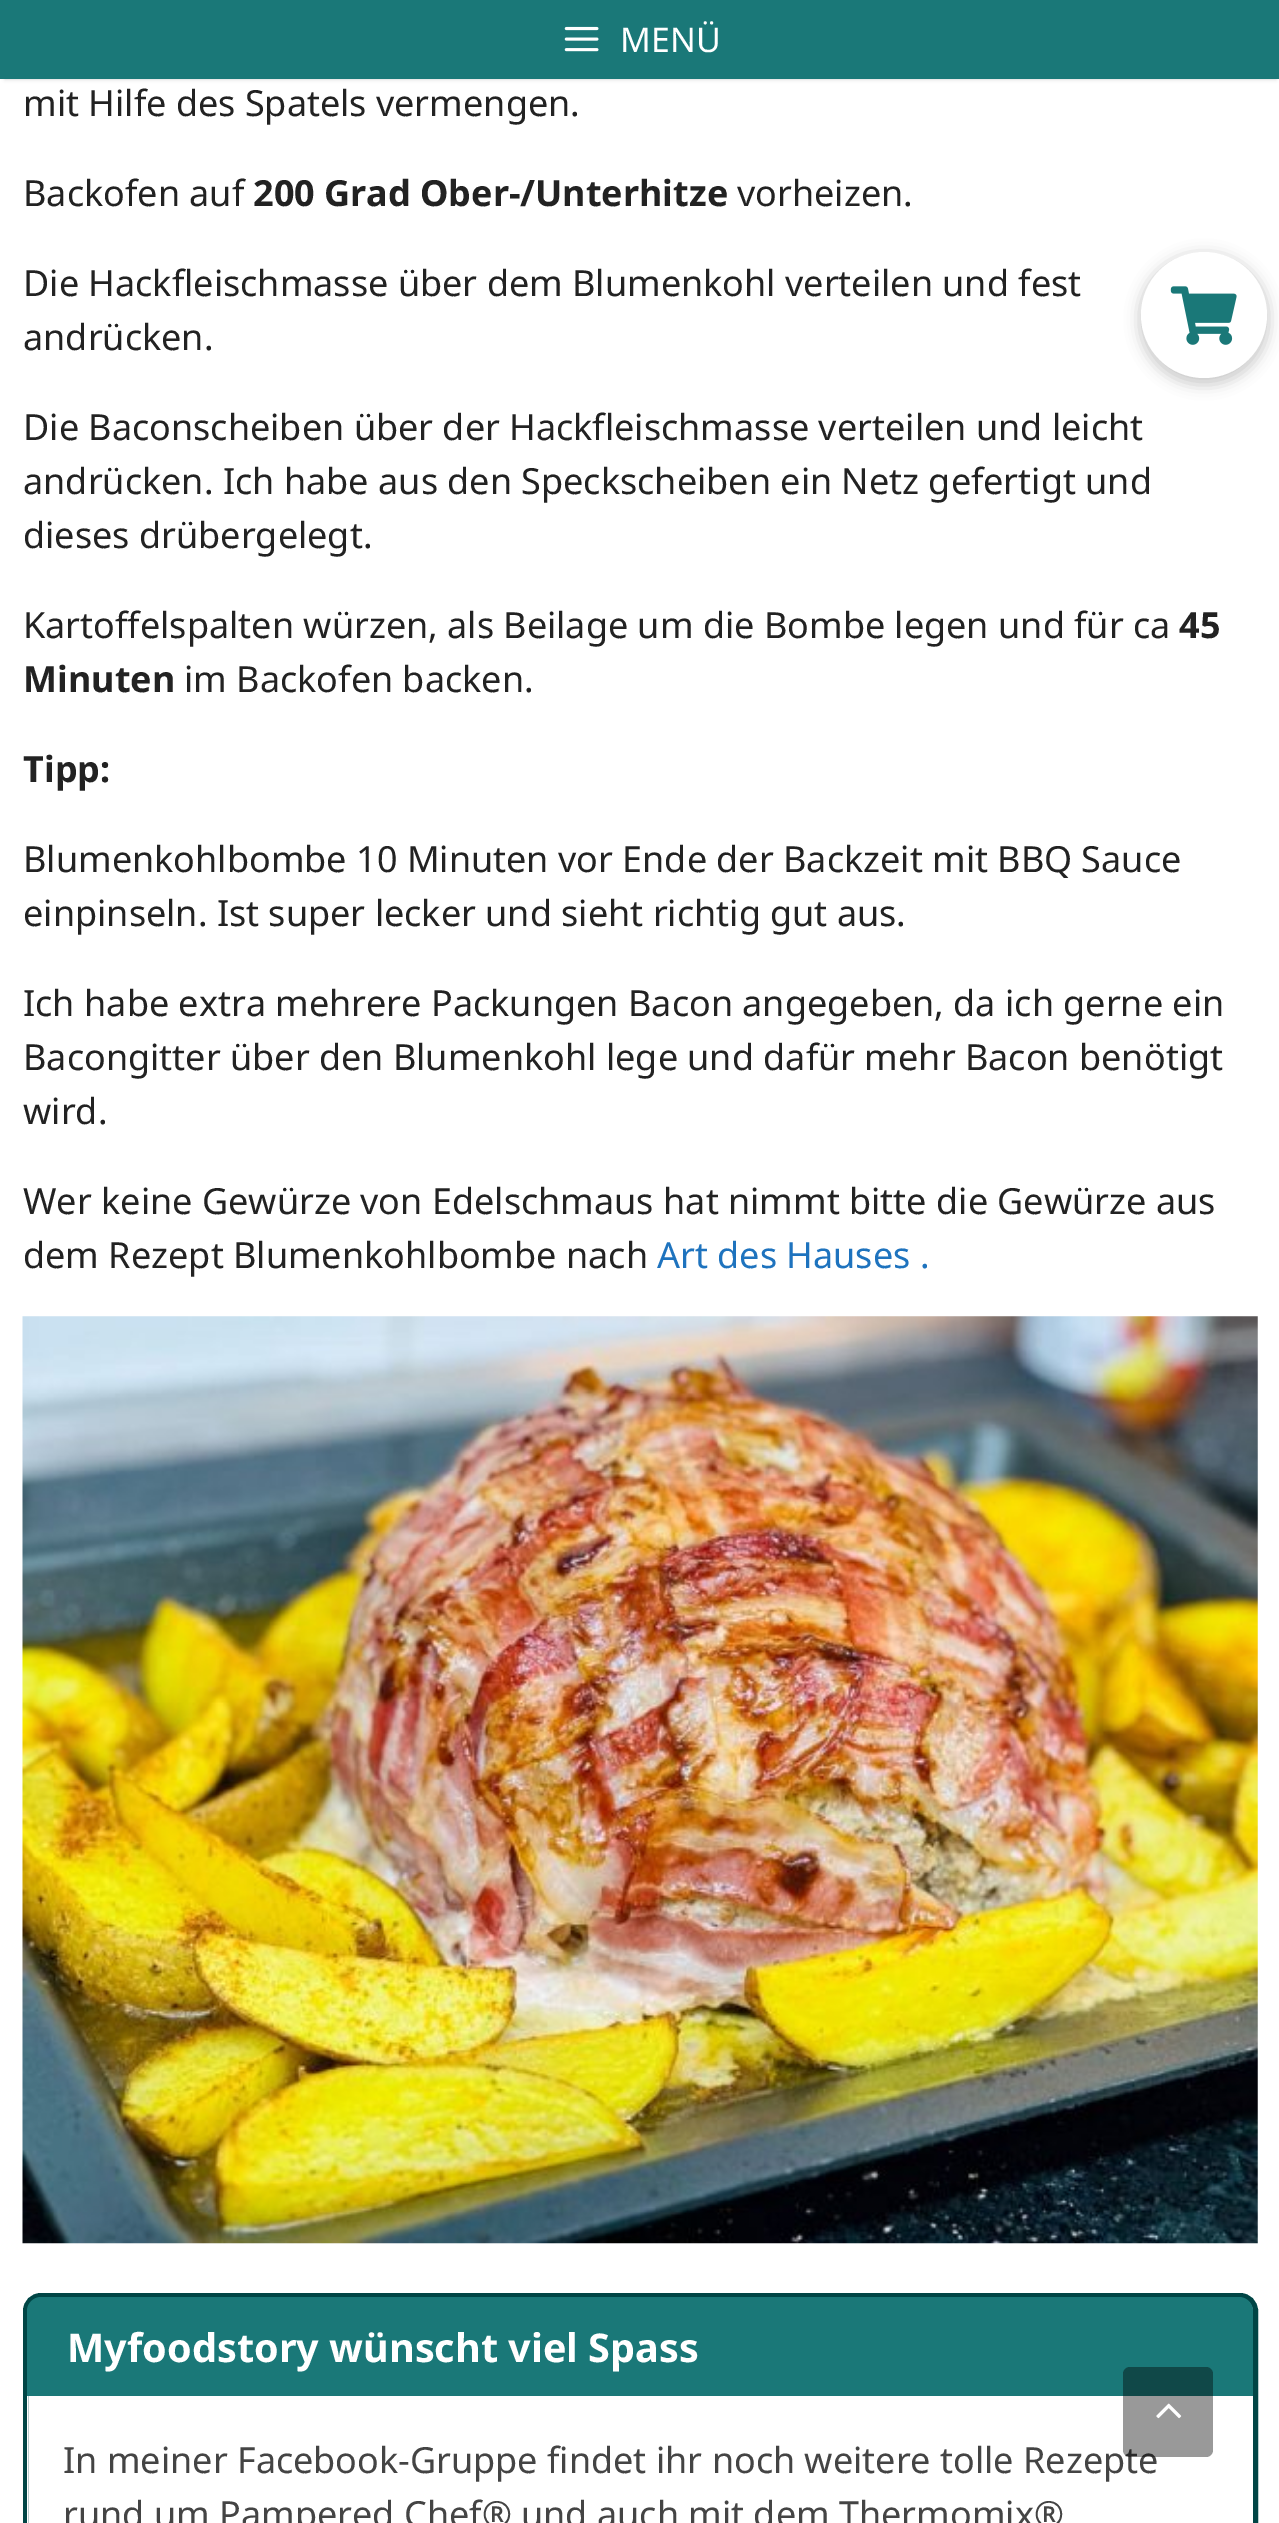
%!PS
<< /PageSize [1279 2523] /PageUsesTransparency true >> setpagedevice
/mt/moveto load def
/li/lineto load def
/ct/curveto load def
/cp/closepath load def
/fl/fill load def
/st/stroke load def
/lw/setlinewidth load def
/co { dup -16 bitshift 255 div exch dup -8 bitshift 255 and 255 div exch 255 and 255 div setrgbcolor } def
/fn { [ exch dup neg 0 0 3 -1 roll 0 0 ] selectfont } def
/tx { co fn moveto show } def
/bx { co rectfill } def
/al { dup .setfillconstantalpha .setstrokeconstantalpha } def
/ci { newpath 0 360 arc closepath } def
/rr { 5 dict begin { /r /h /w /y /x } { exch def } forall
  x r add y moveto x w add y 2 copy h add r arct x w add y h add x 1 index r arct
  x y h add x y r arct x y 2 copy exch w add exch r arct closepath end } def
/sh { 12 dict begin { /a /b /q /h /w /y /x } { exch def } forall gsave /was 0 def
  9 -2 -9 { dup b mul 4 div /e exch def 1 sub .425 mul 2.718 exch exp 1 add a .99 .min exch div /now exch def
    1 1 now sub 1 was sub div sub al /was now def
    w h .min e 2 mul add 0 gt { x e sub y e sub w e 2 mul add h e 2 mul add
      q e add b .6 mul add w h .min 2 div e add .min 0 .max rr fill } if } for grestore end } def
/im { 5 dict begin { /h /w /y /x /name } { exch def } forall
  gsave x y translate w h scale
  w h 8 [w 0 0 h 0 0] name (r) file false 3 colorimage grestore end } def
0 .pushpdf14devicefilter
0 2523 translate 1 -1 scale
4 setmiterlimit
0 0 1279 2523 16#FFFFFF bx
16#000000 co
5 9 1271 70 0 2 .2 sh
0 0 1279 79 16#1A7878 bx
(media/1.raw) 564 26 35 26 im
(media/2.raw) 22 1316 1236 928 im
16#004545 co
5 lw
25.5 2295.5 1230 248 15.5 rr st
16#1A7878 co
41 2297 mt 1239 2297 li 1246.5 2297 1253 2303.5 1253 2311 ct 1253 2396 li 27 2396 li 27 2311 li 27 2303.5 33.5 2297 41 2297 ct cp fl
27 2396 1 127 16#FFFFFF bx
16#000000 co
1139 254 130 131 65 7 .2 sh
16#FFFFFF co
1204 315 63 ci fl
(media/3.raw) 1170 286 67 59 im
(MENÜ) 620 52 /NotoSans-Regular 34 16#FFFFFF tx
(mit Hilfe des Spatels vermengen.) 23 116 /NotoSans-Regular 36 16#222222 tx
(Backofen auf) 23 206 /NotoSans-Regular 36 16#222222 tx
(200 Grad Ober-/Unterhitze) 253 206 /NotoSans-Bold 36 16#222222 tx
(vorheizen.) 737 206 /NotoSans-Regular 36 16#222222 tx
(Die Hackfleischmasse über dem Blumenkohl verteilen und fest) 23 296 /NotoSans-Regular 36 16#222222 tx
(andrücken.) 23 350 /NotoSans-Regular 36 16#222222 tx
(Die Baconscheiben über der Hackfleischmasse verteilen und leicht) 23 440 /NotoSans-Regular 36 16#222222 tx
(andrücken. Ich habe aus den Speckscheiben ein Netz gefertigt und) 23 494 /NotoSans-Regular 36 16#222222 tx
(dieses drübergelegt.) 23 548 /NotoSans-Regular 36 16#222222 tx
(Kartoffelspalten würzen, als Beilage um die Bombe legen und für ca) 23 638 /NotoSans-Regular 36 16#222222 tx
(45) 1179 638 /NotoSans-Bold 36 16#222222 tx
(Minuten) 23 692 /NotoSans-Bold 36 16#222222 tx
(im Backofen backen.) 184 692 /NotoSans-Regular 36 16#222222 tx
(Tipp:) 23 782 /NotoSans-Bold 36 16#222222 tx
(Blumenkohlbombe 10 Minuten vor Ende der Backzeit mit BBQ Sauce) 23 872 /NotoSans-Regular 36 16#222222 tx
(einpinseln. Ist super lecker und sieht richtig gut aus.) 23 926 /NotoSans-Regular 36 16#222222 tx
(Ich habe extra mehrere Packungen Bacon angegeben, da ich gerne ein) 23 1016 /NotoSans-Regular 36 16#222222 tx
(Bacongitter über den Blumenkohl lege und dafür mehr Bacon benötigt) 23 1070 /NotoSans-Regular 36 16#222222 tx
(wird.) 23 1124 /NotoSans-Regular 36 16#222222 tx
(Wer keine Gewürze von Edelschmaus hat nimmt bitte die Gewürze aus) 23 1214 /NotoSans-Regular 36 16#222222 tx
(dem Rezept Blumenkohlbombe nach) 23 1268 /NotoSans-Regular 36 16#222222 tx
(Art des Hauses .) 657 1268 /NotoSans-Regular 36 16#1E73BE tx
(Myfoodstory wünscht viel Spass) 67 2362 /NotoSans-Bold 39.6 16#FFFFFF tx
(In meiner Facebook-Gruppe findet ihr noch weitere tolle Rezepte) 63 2473 /NotoSans-Regular 36 16#444444 tx
(rund um Pampered Chef® und auch mit dem Thermomix®) 63 2527 /NotoSans-Regular 36 16#444444 tx
0.4 al
16#000000 co
1123 2367 90 90 7 rr fl
1 al
(media/4.raw) 1156 2403 26 16 im
.poppdf14devicefilter showpage
